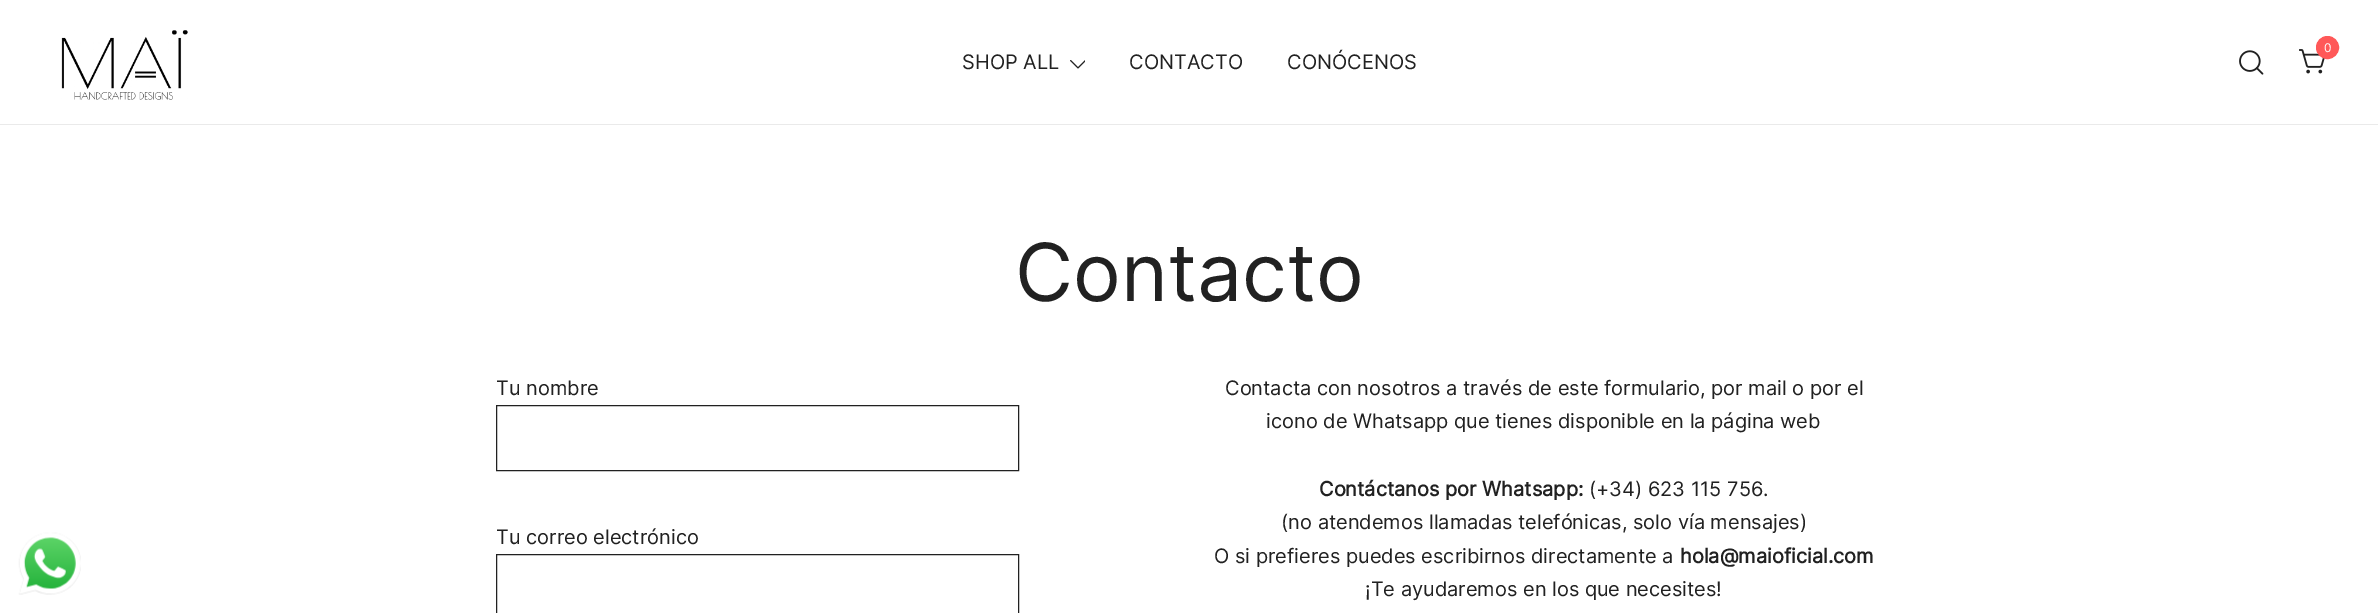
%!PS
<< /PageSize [2378 613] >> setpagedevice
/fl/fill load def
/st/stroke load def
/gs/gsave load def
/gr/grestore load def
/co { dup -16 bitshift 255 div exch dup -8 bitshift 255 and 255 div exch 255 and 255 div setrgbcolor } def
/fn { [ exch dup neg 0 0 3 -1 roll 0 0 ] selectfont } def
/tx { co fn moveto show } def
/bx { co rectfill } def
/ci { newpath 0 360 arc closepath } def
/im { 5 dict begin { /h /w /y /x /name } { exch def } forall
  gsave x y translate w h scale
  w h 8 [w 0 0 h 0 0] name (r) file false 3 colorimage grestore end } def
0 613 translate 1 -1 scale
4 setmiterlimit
0 0 2378 613 16#FFFFFF bx
(media/1.raw) 18 532 63 63 im
0 124 2378 1 16#EAEAEA bx
(media/2.raw) 61 30 127 70 im
(media/3.raw) 2299 49 26 25 im
16#FF5858 co
2327.5 47.5 11 ci gs fl gr
st
(media/4.raw) 2239 50 25 25 im
(media/5.raw) 1070 60 15 9 im
16#212121 co
496.5 405.5 522 65 rectstroke
496.5 554.5 522 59 rectstroke
(0) 2324 52 /Inter-Regular 12 16#FFFFFF tx
(SHOP ALL) 962 69 /Inter-Regular 20 16#212121 tx
(CONTACTO) 1129 69 /Inter-Regular 20 16#212121 tx
(CONÓCENOS) 1287 69 /Inter-Regular 20 16#212121 tx
(Contacto) 1015 301 /Inter-Regular 80 16#212121 tx
(Tu nombre) 496 395 /Inter-Regular 20 16#212121 tx
(Tu correo electrónico) 496 544 /Inter-Regular 20 16#212121 tx
(Contacta con nosotros a través de este formulario, por mail o por el) 1225 395 /Inter-Regular 20 16#212121 tx
(icono de Whatsapp que tienes disponible en la página web) 1266 428 /Inter-Regular 20 16#212121 tx
(Contáctanos por Whatsapp:) 1319 496 /Inter-Bold 20 16#212121 tx
(\(+34\) 623 115 756.) 1589 496 /Inter-Regular 20 16#212121 tx
(\(no atendemos llamadas telefónicas, solo vía mensajes\)) 1281 529 /Inter-Regular 20 16#212121 tx
(O si prefieres puedes escribirnos directamente a) 1214 563 /Inter-Regular 20 16#212121 tx
(hola@maioficial.com) 1680 563 /Inter-Bold 20 16#212121 tx
(¡Te ayudaremos en los que necesites!) 1365 596 /Inter-Regular 20 16#212121 tx
showpage
